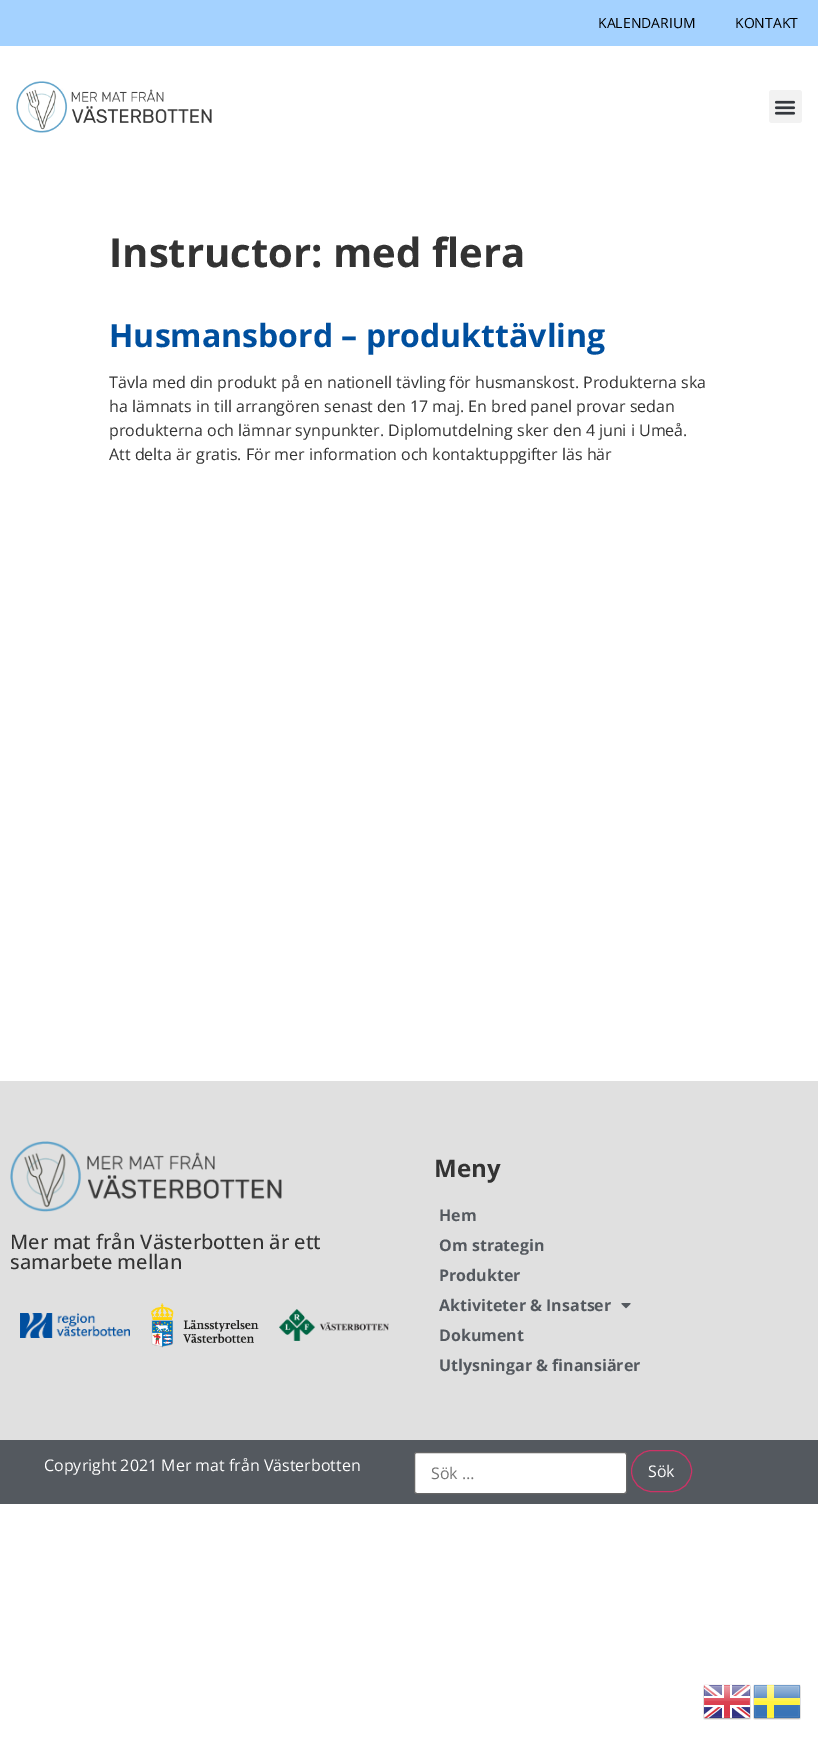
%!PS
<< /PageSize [818 1741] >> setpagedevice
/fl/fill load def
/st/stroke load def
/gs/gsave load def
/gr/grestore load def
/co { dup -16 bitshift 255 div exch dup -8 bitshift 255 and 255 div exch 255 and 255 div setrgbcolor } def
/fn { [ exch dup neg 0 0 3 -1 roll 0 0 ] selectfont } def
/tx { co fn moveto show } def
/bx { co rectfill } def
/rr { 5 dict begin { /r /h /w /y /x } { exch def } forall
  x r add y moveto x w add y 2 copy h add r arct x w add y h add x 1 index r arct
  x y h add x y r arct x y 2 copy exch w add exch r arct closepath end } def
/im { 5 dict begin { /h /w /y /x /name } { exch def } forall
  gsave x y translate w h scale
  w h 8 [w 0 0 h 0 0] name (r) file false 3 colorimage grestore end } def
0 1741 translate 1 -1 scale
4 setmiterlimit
0 0 818 1741 16#FFFFFF bx
0 0 818 46 16#A4D2FF bx
(media/1.raw) 16 81 196 52 im
16#F2F2F2 co
769 90 33 33 3 rr fl
(media/2.raw) 774 100 22 15 im
0 1081 818 359 16#E0E0E0 bx
(media/3.raw) 10 1141 272 71 im
(media/4.raw) 20 1313 110 25 im
(media/5.raw) 151 1303 108 45 im
(media/6.raw) 279 1309 110 32 im
(media/7.raw) 621 1303 10 6 im
0 1440 818 64 16#54595F bx
16#FFFFFF co
414.5 1452.5 212 41 2.5 rr gs fl gr
16#666666 co
st
16#CC3366 co
631.5 1450.5 60 41 20.5 rr st
(media/8.raw) 703 1684 48 36 im
(media/9.raw) 753 1684 48 36 im
(KALENDARIUM) 598 28 /OpenSans-Regular 14 16#000000 tx
(KONTAKT) 735 28 /OpenSans-Regular 14 16#000000 tx
(Instructor: med flera) 109 267 /OpenSans-Bold 40 16#333333 tx
(Husmansbord – produkttävling) 109 347 /OpenSans-Bold 32 16#004F9E tx
(Tävla med din produkt på en nationell tävling för husmanskost. Produkterna ska) 109 388 /OpenSans-Regular 16 16#333333 tx
(ha lämnats in till arrangören senast den 17 maj. En bred panel provar sedan) 109 412 /OpenSans-Regular 16 16#333333 tx
(produkterna och lämnar synpunkter. Diplomutdelning sker den 4 juni i Umeå.) 109 436 /OpenSans-Regular 16 16#333333 tx
(Att delta är gratis. För mer information och kontaktuppgifter läs här) 109 460 /OpenSans-Regular 16 16#333333 tx
(Mer mat från Västerbotten är ett) 10 1249 /OpenSans-Medium 20 16#333333 tx
(samarbete mellan) 10 1269 /OpenSans-Medium 20 16#333333 tx
(Meny) 434 1177 /OpenSans-Bold 24 16#333333 tx
(Hem) 439 1221 /OpenSans-Bold 16 16#54595F tx
(Om strategin) 439 1251 /OpenSans-Bold 16 16#54595F tx
(Produkter) 439 1281 /OpenSans-Bold 16 16#54595F tx
(Aktiviteter & Insatser) 439 1311 /OpenSans-Bold 16 16#54595F tx
(Dokument) 439 1341 /OpenSans-Bold 16 16#54595F tx
(Utlysningar & finansiärer) 439 1371 /OpenSans-Bold 16 16#54595F tx
(Copyright 2021 Mer mat från Västerbotten) 44 1471 /OpenSans-Regular 16 16#FFFFFF tx
(Sök …) 431 1479 /OpenSans-Regular 16 16#757575 tx
(Sök) 648 1477 /OpenSans-Regular 16 16#FFFFFF tx
showpage
